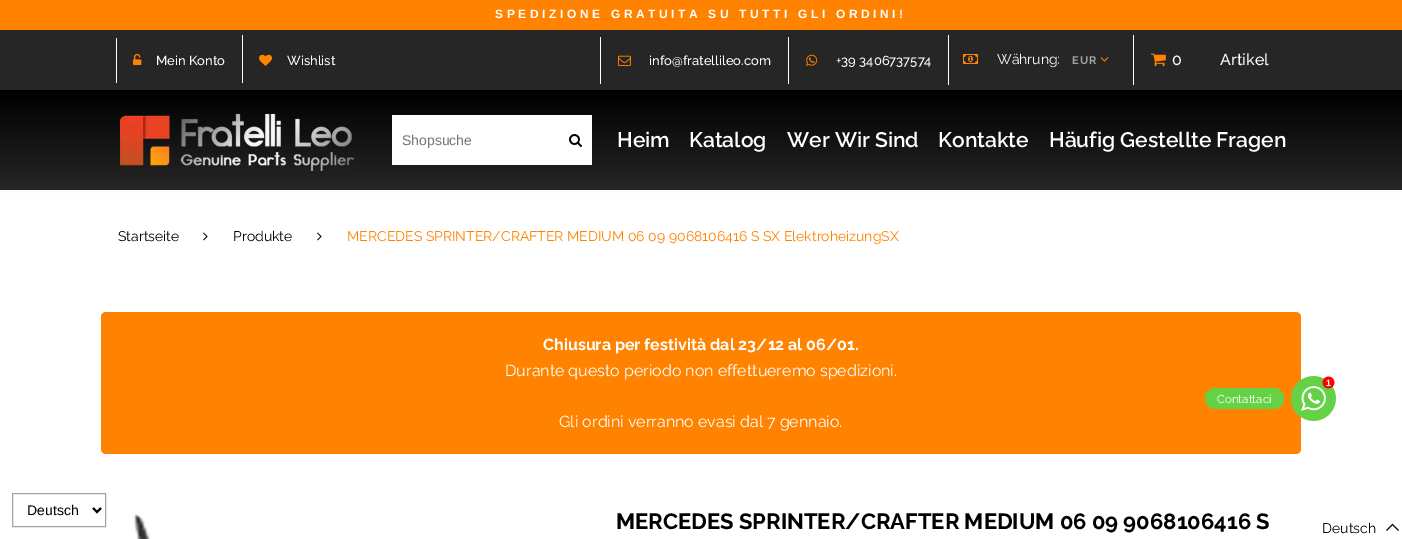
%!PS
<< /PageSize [1402 539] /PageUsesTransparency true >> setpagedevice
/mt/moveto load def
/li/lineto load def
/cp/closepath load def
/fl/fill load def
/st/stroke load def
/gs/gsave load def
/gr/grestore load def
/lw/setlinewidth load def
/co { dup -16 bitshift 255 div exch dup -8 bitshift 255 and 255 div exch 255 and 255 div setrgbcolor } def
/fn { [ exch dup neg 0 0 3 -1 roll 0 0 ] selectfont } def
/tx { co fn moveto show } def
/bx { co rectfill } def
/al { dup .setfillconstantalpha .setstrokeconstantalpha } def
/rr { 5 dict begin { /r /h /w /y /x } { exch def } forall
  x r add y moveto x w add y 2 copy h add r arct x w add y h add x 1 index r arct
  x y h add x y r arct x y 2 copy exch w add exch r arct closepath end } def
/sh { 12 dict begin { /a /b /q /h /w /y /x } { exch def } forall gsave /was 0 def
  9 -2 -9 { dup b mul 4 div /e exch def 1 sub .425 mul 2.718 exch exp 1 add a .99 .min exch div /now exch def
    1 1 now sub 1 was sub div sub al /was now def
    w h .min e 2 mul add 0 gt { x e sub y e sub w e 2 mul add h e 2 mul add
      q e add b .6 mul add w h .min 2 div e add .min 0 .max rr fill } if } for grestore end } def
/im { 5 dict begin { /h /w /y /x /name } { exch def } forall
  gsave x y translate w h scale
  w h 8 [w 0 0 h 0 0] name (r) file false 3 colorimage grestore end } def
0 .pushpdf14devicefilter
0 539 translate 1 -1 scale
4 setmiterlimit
0 0 1402 539 16#FFFFFF bx
16#000000 co
0 0 1402 190 0 2.5 .05 sh
0 30 1402 60 16#262626 bx
0 0 1402 30 16#FF8200 bx
116 38 1 45 16#FFFFFF bx
(media/1.raw) 133 53 9 12 im
242 35 1 48 16#FFFFFF bx
(media/2.raw) 259 54 13 12 im
600 37 1 47 16#FFFFFF bx
(media/3.raw) 618 55 13 11 im
788 37 1 47 16#FFFFFF bx
(media/4.raw) 806 54 12 12 im
1133 35 1 50 16#FFFFFF bx
948 35 1 50 16#FFFFFF bx
(media/5.raw) 963 54 15 10 im
(media/6.raw) 1100 57 9 5 im
(media/7.raw) 1151 53 15 14 im
gs 0 90 mt 1402 90 li 1402 190 li 0 190 li cp clip newpath
<< /ShadingType 2 /ColorSpace /DeviceRGB /Coords [701 90 701 190] /Extend [true true] /Function << /FunctionType 2 /Domain [0 1] /C0 [0 0 0] /C1 [.149 .149 .149] /N 1 >> >> shfill gr
(media/8.raw) 120 113 235 58 im
392 115 200 50 16#FFFFFF bx
(media/9.raw) 569 134 13 13 im
16#A4A4A4 co
12.5 493.5 93 33 rectstroke
16#000000 co
2 lw
93 508 mt 97 512 li 101 508 li st
(media/10.raw) 203 232 5 9 im
(media/10.raw) 317 232 5 9 im
16#FF8200 co
101 312 1200 142 5 rr fl
(media/11.raw) 132 514 19 25 im
(media/12.raw) 1291 376 45 45 im
16#65D246 co
1205 388 79 21 10.5 rr fl
16#000000 co
1 lw
1398.5 530.5 mt 1392.5 524.5 li 1386.5 530.5 li st
/LiberationSans-Bold 12 fn
16#FFFFFF co
495 18 mt 3.6 0 (SPEDIZIONE GRATUITA SU TUTTI GLI ORDINI!) ashow
(Mein Konto) 156 65 /Raleway-Medium 13 16#FFFFFF tx
(Wishlist) 287 65 /Raleway-Medium 13 16#FFFFFF tx
(info@fratellileo.com) 649 65 /Raleway-Medium 13 16#FFFFFF tx
(+39 3406737574) 836 65 /Raleway-Medium 13 16#FFFFFF tx
(Währung:) 997 64 /Raleway-Regular 14 16#FFFFFF tx
/Raleway-Bold 11 fn
16#A4A4A4 co
1072 64 mt 1 0 (EUR) ashow
(0) 1172 65 /Raleway-Medium 16 16#FFFFFF tx
(Artikel) 1220 65 /Raleway-Medium 16 16#FFFFFF tx
(Shopsuche) 402 145 /LiberationSans-Regular 14 16#757575 tx
(Heim) 617 147 /Raleway-SemiBold 21 16#FFFFFF tx
(Katalog) 689 147 /Raleway-SemiBold 21 16#FFFFFF tx
(Wer Wir Sind) 787 147 /Raleway-SemiBold 21 16#FFFFFF tx
(Kontakte) 938 147 /Raleway-SemiBold 21 16#FFFFFF tx
(Häufig Gestellte Fragen) 1049 147 /Raleway-SemiBold 21 16#FFFFFF tx
(Deutsch) 27 515 /LiberationSans-Regular 14 16#000000 tx
(Startseite) 118 241 /Raleway-Regular 14 16#000000 tx
(Produkte) 233 241 /Raleway-Regular 14 16#000000 tx
(MERCEDES SPRINTER/CRAFTER MEDIUM 06 09 9068106416 S SX ElektroheizungSX) 347 241 /Raleway-Regular 14 16#FF8200 tx
(Chiusura per festività dal 23/12 al 06/01.) 543 350 /Raleway-Bold 16 16#FFFFFF tx
(Durante questo periodo non effettueremo spedizioni.) 505 376 /Raleway-Regular 16 16#FFFFFF tx
(Gli ordini verranno evasi dal 7 gennaio.) 559 427 /Raleway-Regular 16 16#FFFFFF tx
(MERCEDES SPRINTER/CRAFTER MEDIUM 06 09 9068106416 S) 616 529 /Raleway-Bold 22 16#000000 tx
(1) 1326 386 /LiberationSans-Bold 9 16#FFFFFF tx
(Contattaci) 1217 403 /Raleway-Regular 11.5 16#FFFFFF tx
(Deutsch) 1322 533 /Raleway-Regular 14 16#000000 tx
.poppdf14devicefilter showpage
